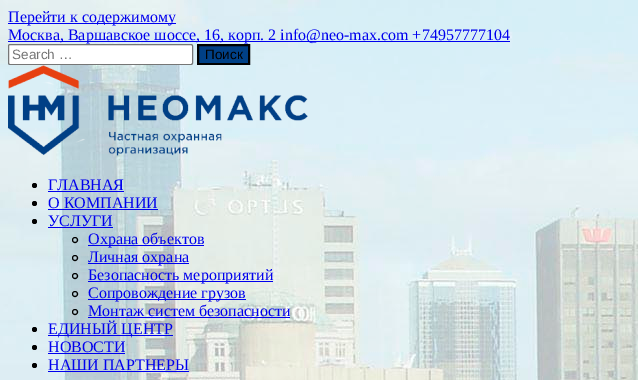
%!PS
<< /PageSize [638 380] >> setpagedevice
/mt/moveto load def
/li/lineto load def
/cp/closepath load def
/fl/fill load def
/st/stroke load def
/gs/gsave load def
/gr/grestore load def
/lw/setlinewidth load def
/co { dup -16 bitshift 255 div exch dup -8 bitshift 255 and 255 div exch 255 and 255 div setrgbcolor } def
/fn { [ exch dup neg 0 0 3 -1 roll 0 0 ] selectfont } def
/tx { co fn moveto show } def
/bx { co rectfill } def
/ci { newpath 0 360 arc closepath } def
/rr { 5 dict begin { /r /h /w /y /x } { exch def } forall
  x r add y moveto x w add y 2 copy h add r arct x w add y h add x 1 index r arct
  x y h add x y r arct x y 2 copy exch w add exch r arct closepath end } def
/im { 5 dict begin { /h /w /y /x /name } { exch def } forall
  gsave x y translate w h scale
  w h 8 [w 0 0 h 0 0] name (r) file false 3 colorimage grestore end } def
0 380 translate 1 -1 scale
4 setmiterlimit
0 0 638 380 16#FFFFFF bx
(media/1.raw) 0 0 638 380 im
8 23 168 1 16#0000EE bx
8 41 400 1 16#0000EE bx
408 41 102 1 16#0000EE bx
16#FFFFFF co
8.5 44.5 184 20 1.5 rr gs fl gr
16#767676 co
st
16#004086 co
198 45 mt 249 45 li 249 64 li 198 64 li cp gs fl gr
16#000000 co
2 lw
st
(media/2.raw) 8 65 300 91 im
34.5 185.5 2.5 ci fl
48 191 76 1 16#0000EE bx
16#000000 co
34.5 203.5 2.5 ci fl
48 209 110 1 16#0000EE bx
16#000000 co
34.5 221.5 2.5 ci fl
48 227 65 1 16#0000EE bx
16#000000 co
1 lw
75 240 2.5 ci st
88 245 116 1 16#0000EE bx
16#000000 co
75 258 2.5 ci st
88 263 101 1 16#0000EE bx
16#000000 co
75 276 2.5 ci st
88 281 185 1 16#0000EE bx
16#000000 co
75 294 2.5 ci st
88 299 158 1 16#0000EE bx
16#000000 co
75 312 2.5 ci st
88 317 202 1 16#0000EE bx
16#000000 co
34.5 329.5 2.5 ci fl
48 335 125 1 16#0000EE bx
16#000000 co
34.5 347.5 2.5 ci fl
48 353 77 1 16#0000EE bx
16#000000 co
34.5 365.5 2.5 ci fl
48 371 141 1 16#0000EE bx
(Перейти к содержимому) 8 22 /LiberationSerif-Regular 16 16#0000EE tx
(Москва, Варшавское шоссе, 16, корп. 2 info@neo-max.com +74957777104) 8 40 /LiberationSerif-Regular 16 16#0000EE tx
(Search …) 12 59 /LiberationSans-Regular 13.5 16#757575 tx
(Поиск) 205 59 /LiberationSans-Regular 13.5 16#000000 tx
(ГЛАВНАЯ) 48 190 /LiberationSerif-Regular 16 16#0000EE tx
(О КОМПАНИИ) 48 208 /LiberationSerif-Regular 16 16#0000EE tx
(УСЛУГИ) 48 226 /LiberationSerif-Regular 16 16#0000EE tx
(Охрана объектов) 88 244 /LiberationSerif-Regular 16 16#0000EE tx
(Личная охрана) 88 262 /LiberationSerif-Regular 16 16#0000EE tx
(Безопасность мероприятий) 88 280 /LiberationSerif-Regular 16 16#0000EE tx
(Сопровождение грузов) 88 298 /LiberationSerif-Regular 16 16#0000EE tx
(Монтаж систем безопасности) 88 316 /LiberationSerif-Regular 16 16#0000EE tx
(ЕДИНЫЙ ЦЕНТР) 48 334 /LiberationSerif-Regular 16 16#0000EE tx
(НОВОСТИ) 48 352 /LiberationSerif-Regular 16 16#0000EE tx
(НАШИ ПАРТНЕРЫ) 48 370 /LiberationSerif-Regular 16 16#0000EE tx
showpage
